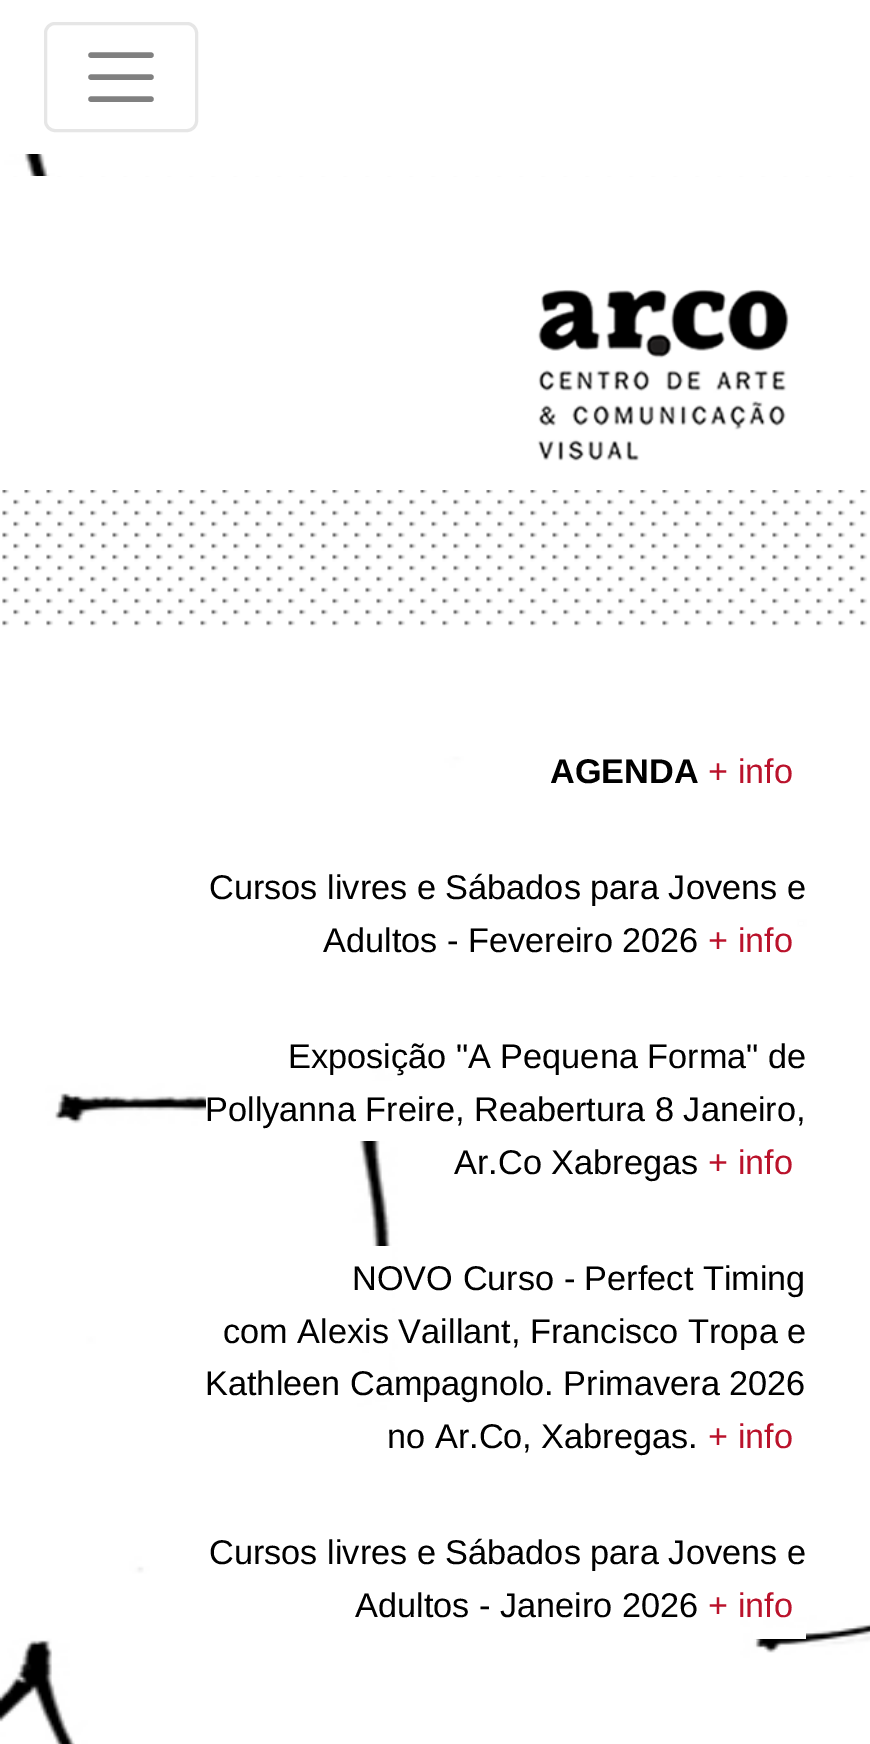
%!PS
<< /PageSize [870 1744] >> setpagedevice
/mt/moveto load def
/li/lineto load def
/st/stroke load def
/lw/setlinewidth load def
/co { dup -16 bitshift 255 div exch dup -8 bitshift 255 and 255 div exch 255 and 255 div setrgbcolor } def
/fn { [ exch dup neg 0 0 3 -1 roll 0 0 ] selectfont } def
/tx { co fn moveto show } def
/bx { co rectfill } def
/rr { 5 dict begin { /r /h /w /y /x } { exch def } forall
  x r add y moveto x w add y 2 copy h add r arct x w add y h add x 1 index r arct
  x y h add x y r arct x y 2 copy exch w add exch r arct closepath end } def
/im { 5 dict begin { /h /w /y /x /name } { exch def } forall
  gsave x y translate w h scale
  w h 8 [w 0 0 h 0 0] name (r) file false 3 colorimage grestore end } def
0 1744 translate 1 -1 scale
4 setmiterlimit
0 0 870 1744 16#FFFFFF bx
(media/1.raw) 0 154 870 1590 im
16#E6E6E6 co
3 lw
45.5 23.5 151 107 9.5 rr st
16#808080 co
5.5 lw
1 setlinecap
91 55 mt 151 55 li 91 77 mt 151 77 li 91 99 mt 151 99 li st
(media/2.raw) 2 176 868 451 im
2 180 866 310 16#FFFFFF bx
(media/3.raw) 537 289 253 172 im
799 922 4 3 16#FFFFFF bx
206 1081 192 60 16#FFFFFF bx
372 1246 20 52 16#FFFFFF bx
369 1298 23 55 16#FFFFFF bx
352 1353 37 44 16#FFFFFF bx
753 1628 53 11 16#FFFFFF bx
(AGENDA) 550 783 /LiberationSans-Bold 34.3 16#000000 tx
(+ info) 708 783 /LiberationSans-Regular 34.3 16#BA122B tx
(Cursos livres e Sábados para Jovens e) 209 899 /LiberationSans-Regular 34.3 16#000000 tx
(Adultos - Fevereiro 2026) 323 952 /LiberationSans-Regular 34.3 16#000000 tx
(+ info) 708 952 /LiberationSans-Regular 34.3 16#BA122B tx
(Exposição "A Pequena Forma" de) 288 1068 /LiberationSans-Regular 34.3 16#000000 tx
(Pollyanna Freire, Reabertura 8 Janeiro,) 205 1121 /LiberationSans-Regular 34.3 16#000000 tx
(Ar.Co Xabregas) 454 1174 /LiberationSans-Regular 34.3 16#000000 tx
(+ info) 708 1174 /LiberationSans-Regular 34.3 16#BA122B tx
(NOVO Curso - Perfect Timing) 352 1290 /LiberationSans-Regular 34.3 16#000000 tx
(com Alexis Vaillant, Francisco Tropa e) 223 1343 /LiberationSans-Regular 34.3 16#000000 tx
(Kathleen Campagnolo. Primavera 2026) 205 1395 /LiberationSans-Regular 34.3 16#000000 tx
(no Ar.Co, Xabregas.) 387 1448 /LiberationSans-Regular 34.3 16#000000 tx
(+ info) 708 1448 /LiberationSans-Regular 34.3 16#BA122B tx
(Cursos livres e Sábados para Jovens e) 209 1564 /LiberationSans-Regular 34.3 16#000000 tx
(Adultos - Janeiro 2026) 355 1617 /LiberationSans-Regular 34.3 16#000000 tx
(+ info) 708 1617 /LiberationSans-Regular 34.3 16#BA122B tx
showpage
